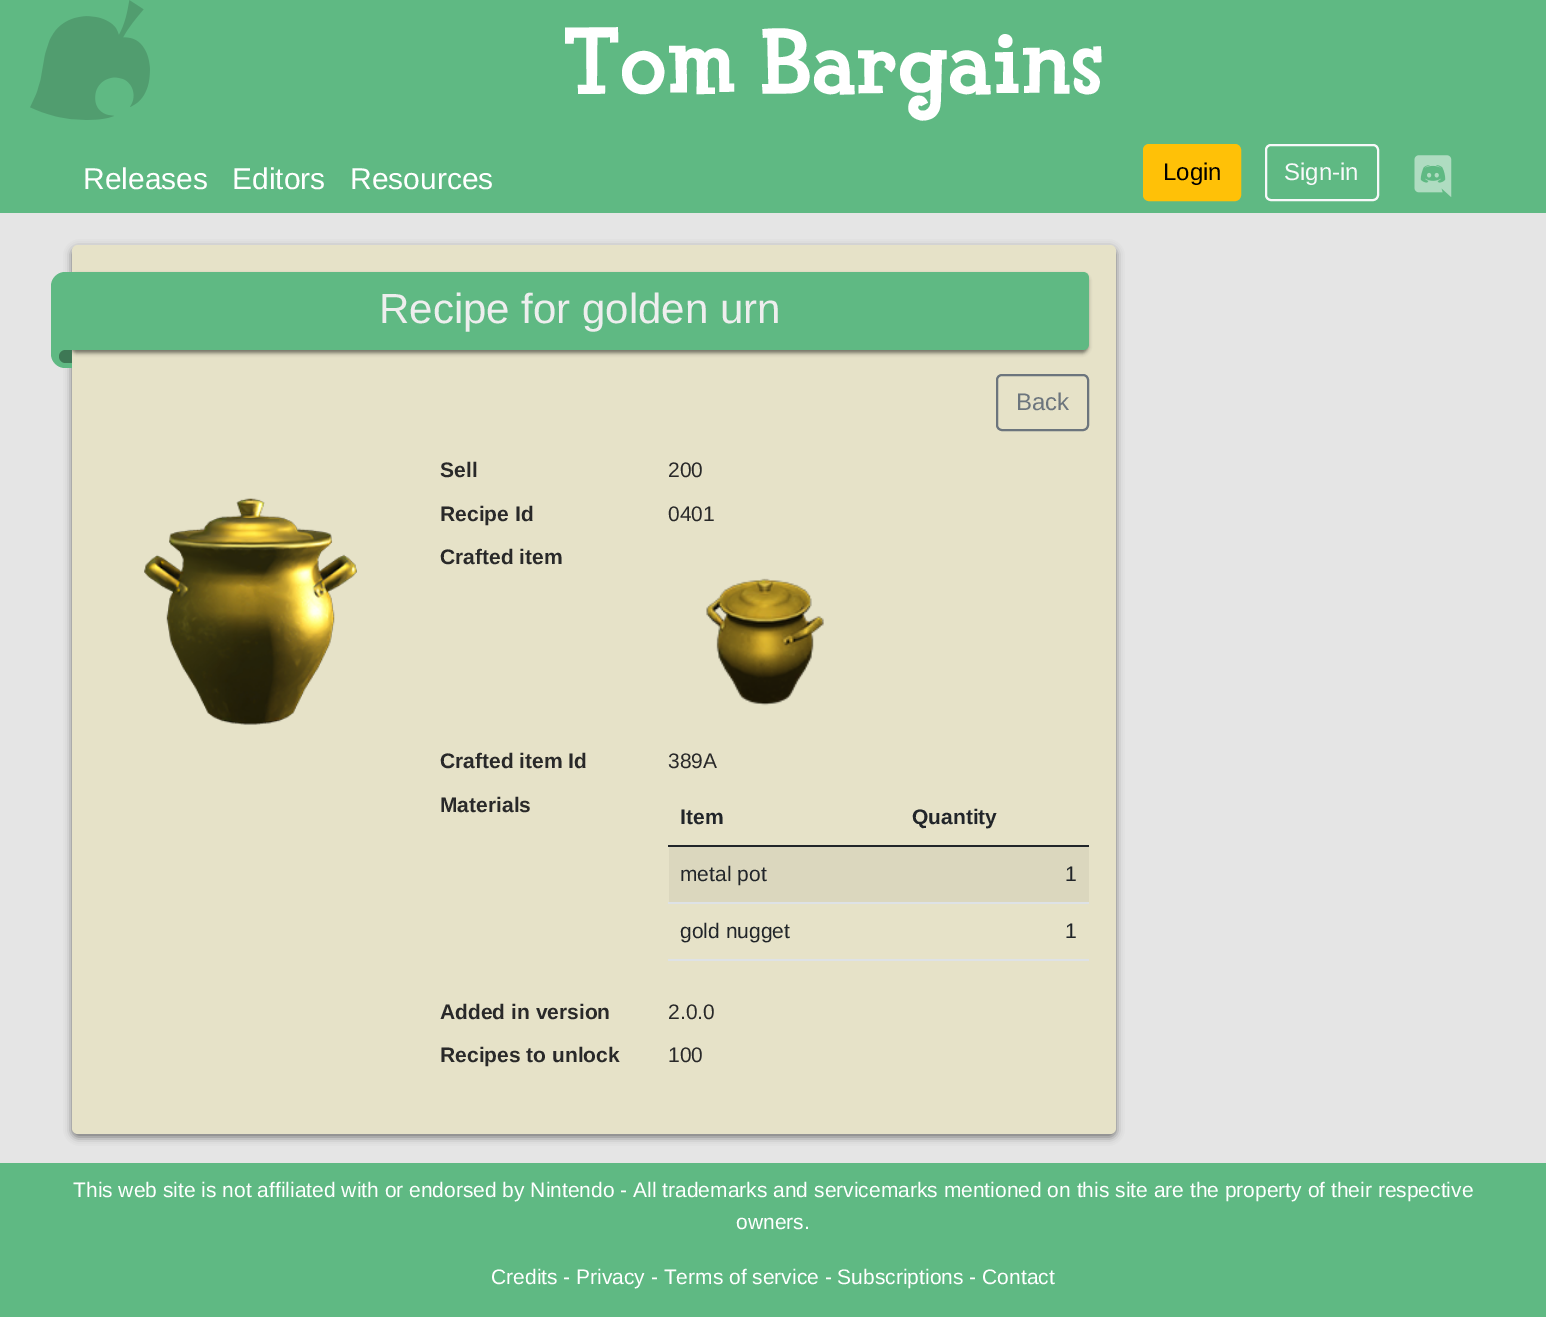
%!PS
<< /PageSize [1546 1317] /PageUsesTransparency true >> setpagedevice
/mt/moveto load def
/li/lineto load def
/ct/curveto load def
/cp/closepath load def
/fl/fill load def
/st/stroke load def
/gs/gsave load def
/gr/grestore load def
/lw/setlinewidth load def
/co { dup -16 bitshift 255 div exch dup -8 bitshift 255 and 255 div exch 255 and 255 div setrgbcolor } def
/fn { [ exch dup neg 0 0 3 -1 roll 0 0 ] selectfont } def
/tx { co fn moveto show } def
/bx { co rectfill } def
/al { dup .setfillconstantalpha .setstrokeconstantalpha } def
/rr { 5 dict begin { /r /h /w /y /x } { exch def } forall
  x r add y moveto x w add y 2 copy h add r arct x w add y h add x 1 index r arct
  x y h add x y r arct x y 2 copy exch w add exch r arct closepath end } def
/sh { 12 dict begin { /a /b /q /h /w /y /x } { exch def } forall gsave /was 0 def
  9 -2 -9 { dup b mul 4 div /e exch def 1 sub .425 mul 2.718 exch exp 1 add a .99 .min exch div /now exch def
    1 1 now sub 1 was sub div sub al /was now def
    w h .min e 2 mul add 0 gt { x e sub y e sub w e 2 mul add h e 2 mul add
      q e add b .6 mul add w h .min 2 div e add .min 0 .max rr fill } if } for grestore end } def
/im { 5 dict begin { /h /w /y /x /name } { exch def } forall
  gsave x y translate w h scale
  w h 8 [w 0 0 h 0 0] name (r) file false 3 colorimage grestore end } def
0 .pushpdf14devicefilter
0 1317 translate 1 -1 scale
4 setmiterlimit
0 0 1546 1317 16#E5E5E5 bx
0 0 1546 213 16#5FB983 bx
(media/1.raw) 30 0 120 120 im
16#FFC107 co
1144 145 96 55 5 rr gs fl gr
2 lw
st
16#F8F9FA co
1266 145 112 55 5 rr st
(media/2.raw) 1414 155 38 42 im
16#000000 co
72 248 1044 889 6 4 .5 sh
16#E6E2C8 co
72 245 1044 889 6 rr fl
16#000000 co
71 275 1017 78 6 2 .5 sh
16#5FB983 co
72 272 mt 1083 272 li 1086.5 272 1089 274.5 1089 278 ct 1089 344 li 1089 347.5 1086.5 350 1083 350 ct 72 350 li cp fl
65 272 mt 72 272 li 72 368 li 65 368 li 57.5 368 51 361.5 51 354 ct 51 286 li 51 278.5 57.5 272 65 272 ct cp fl
16#3E7855 co
65.5 350 mt 72 350 li 72 363 li 65.5 363 li 62 363 59 360 59 356.5 ct 59 353 62 350 65.5 350 ct cp fl
16#6C757D co
997 375 91 55 5 rr st
(media/3.raw) 144 498 213 227 im
(media/4.raw) 706 578 118 128 im
668 845 421 2 16#212529 bx
669 847 420 55 16#DBD7BE bx
668 902 421 2 16#DEE2E6 bx
668 959 421 2 16#DEE2E6 bx
0 1163 1546 154 16#5FB983 bx
(Tom Bargains) 563 93 /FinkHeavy-Black 96 16#FFFFFF tx
(Releases) 83 189 /LiberationSans-Regular 30 16#FFFFFF tx
(Editors) 232 189 /LiberationSans-Regular 30 16#FFFFFF tx
(Resources) 350 189 /LiberationSans-Regular 30 16#FFFFFF tx
(Login) 1163 180 /LiberationSans-Regular 24 16#000000 tx
(Sign-in) 1284 180 /LiberationSans-Regular 24 16#F8F9FA tx
(Recipe for golden urn) 379 323 /LiberationSans-Regular 42 16#EEEEEE tx
(Back) 1016 410 /LiberationSans-Regular 24 16#6C757D tx
(Sell) 440 477 /LiberationSans-Bold 21 16#292929 tx
(200) 668 477 /LiberationSans-Regular 21 16#292929 tx
(Recipe Id) 440 521 /LiberationSans-Bold 21 16#292929 tx
(0401) 668 521 /LiberationSans-Regular 21 16#292929 tx
(Crafted item) 440 564 /LiberationSans-Bold 21 16#292929 tx
(Crafted item Id) 440 768 /LiberationSans-Bold 21 16#292929 tx
(389A) 668 768 /LiberationSans-Regular 21 16#292929 tx
(Materials) 440 812 /LiberationSans-Bold 21 16#292929 tx
(Item) 680 824 /LiberationSans-Bold 21 16#212529 tx
(Quantity) 912 824 /LiberationSans-Bold 21 16#212529 tx
(metal pot) 680 881 /LiberationSans-Regular 21 16#212529 tx
(1) 1065 881 /LiberationSans-Regular 21 16#212529 tx
(gold nugget) 680 938 /LiberationSans-Regular 21 16#212529 tx
(1) 1065 938 /LiberationSans-Regular 21 16#212529 tx
(Added in version) 440 1019 /LiberationSans-Bold 21 16#292929 tx
(2.0.0) 668 1019 /LiberationSans-Regular 21 16#292929 tx
(Recipes to unlock) 440 1062 /LiberationSans-Bold 21 16#292929 tx
(100) 668 1062 /LiberationSans-Regular 21 16#292929 tx
(This web site is not affiliated with or endorsed by Nintendo - All trademarks and servicemarks mentioned on this site are the property of their respective) 73 1197 /LiberationSans-Regular 21 16#FFFFFF tx
(owners.) 736 1229 /LiberationSans-Regular 21 16#FFFFFF tx
(Credits - Privacy - Terms of service - Subscriptions - Contact) 491 1284 /LiberationSans-Regular 21 16#FFFFFF tx
.poppdf14devicefilter showpage
